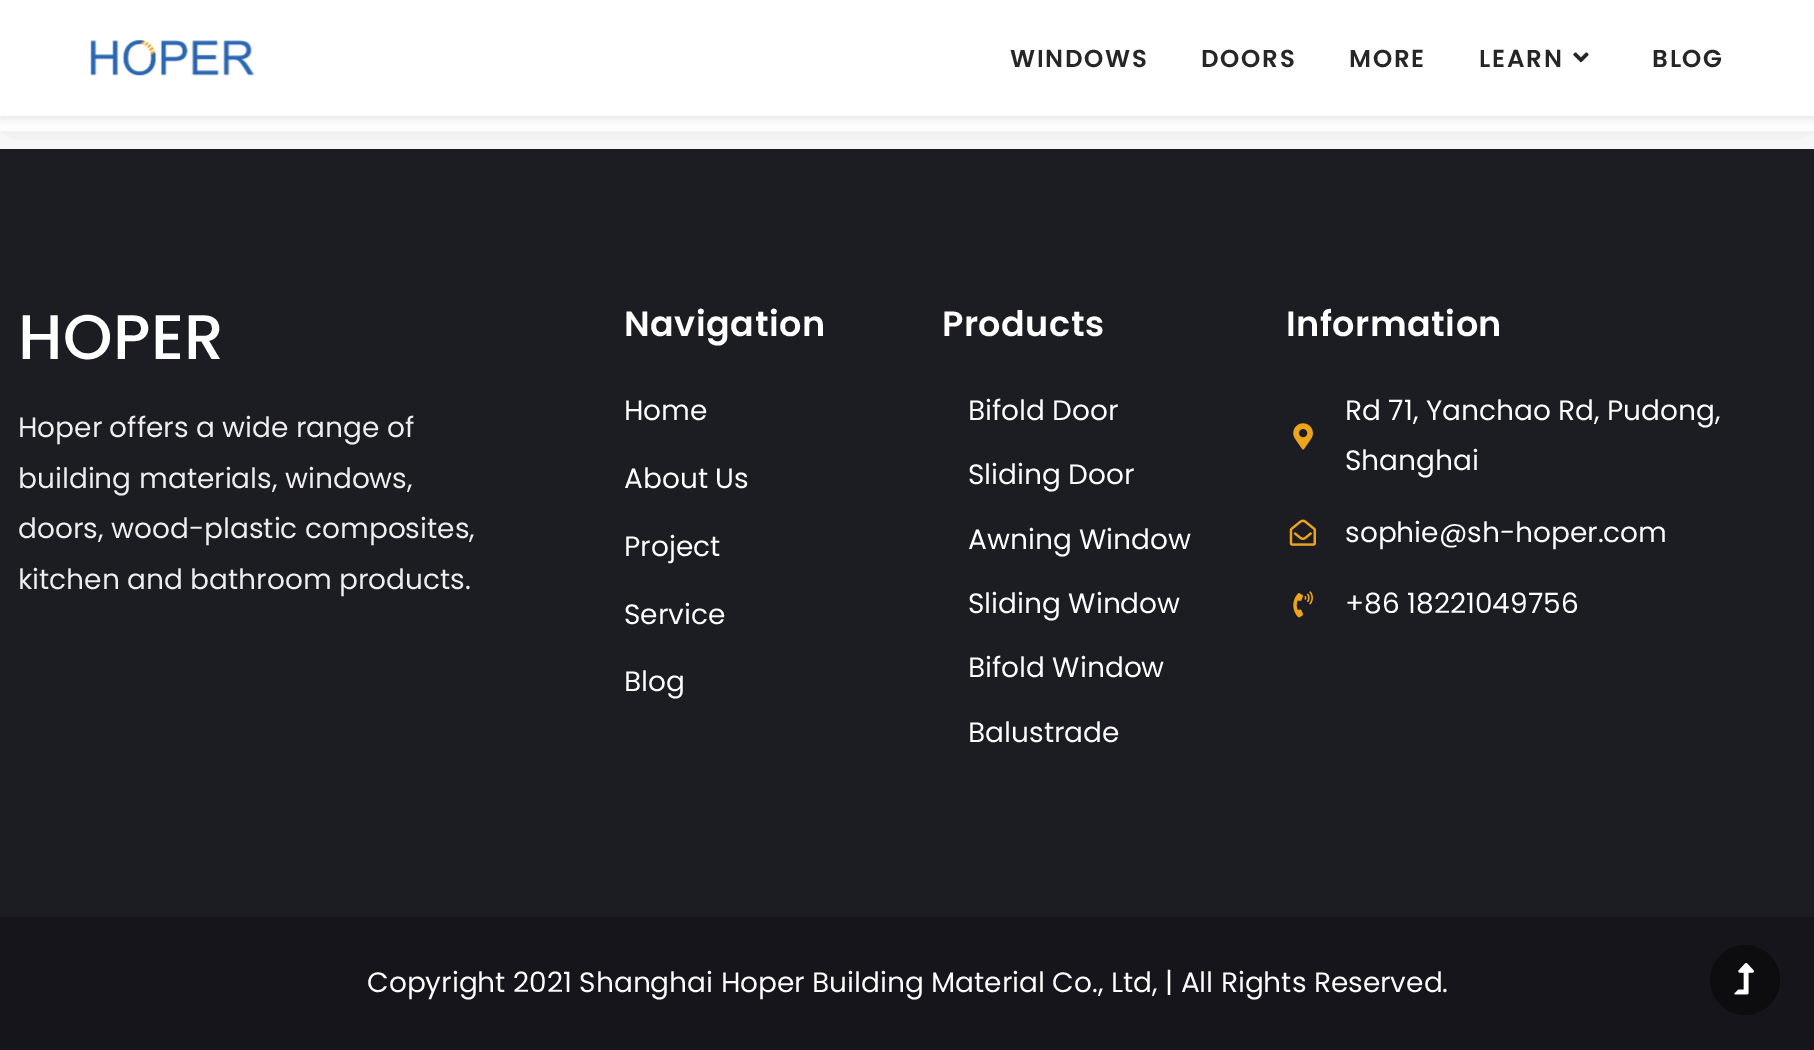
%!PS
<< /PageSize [1814 1050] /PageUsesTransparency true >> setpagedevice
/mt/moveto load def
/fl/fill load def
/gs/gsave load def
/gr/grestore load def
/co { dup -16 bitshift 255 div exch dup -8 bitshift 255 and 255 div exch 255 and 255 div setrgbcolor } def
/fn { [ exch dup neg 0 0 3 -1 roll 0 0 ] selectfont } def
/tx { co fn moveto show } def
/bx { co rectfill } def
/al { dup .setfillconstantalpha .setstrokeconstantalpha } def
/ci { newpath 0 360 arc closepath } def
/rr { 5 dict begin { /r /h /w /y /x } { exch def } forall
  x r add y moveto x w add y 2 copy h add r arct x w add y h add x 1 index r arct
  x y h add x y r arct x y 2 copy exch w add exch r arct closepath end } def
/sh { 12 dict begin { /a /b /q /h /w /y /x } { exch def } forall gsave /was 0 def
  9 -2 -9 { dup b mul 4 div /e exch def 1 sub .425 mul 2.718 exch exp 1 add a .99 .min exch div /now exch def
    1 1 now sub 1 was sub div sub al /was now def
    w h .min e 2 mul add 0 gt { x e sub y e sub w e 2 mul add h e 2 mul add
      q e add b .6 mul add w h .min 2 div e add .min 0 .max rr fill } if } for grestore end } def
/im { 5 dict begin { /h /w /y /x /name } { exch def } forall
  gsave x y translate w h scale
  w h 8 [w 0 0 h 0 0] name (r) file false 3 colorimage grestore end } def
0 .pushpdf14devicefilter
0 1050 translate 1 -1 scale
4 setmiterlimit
0 0 1814 1050 16#FFFFFF bx
0 149 1814 768 16#1C1C23 bx
gs
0 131 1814 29 rectclip
16#000000 co
0 -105 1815 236 0 35 .1 sh
gr
16#000000 co
0 4 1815 115 0 4.5 .1 sh
0 0 1814 116 16#FFFFFF bx
(media/1.raw) 90 40 165 36 im
(media/2.raw) 1573 52 16 11 im
(media/3.raw) 1293 423 20 27 im
(media/4.raw) 1289 519 27 27 im
(media/5.raw) 1293 591 20 27 im
0 917 1814 133 16#15151B bx
16#0D0D10 co
1745 980 35 ci fl
(media/6.raw) 1734 963 20 32 im
/Poppins-SemiBold 24.5 fn
16#272627 co
1010 67 mt 1.75 0 (WINDOWS) ashow
1201 67 mt 1.75 0 (DOORS) ashow
1349 67 mt 1.75 0 (MORE) ashow
1479 67 mt 1.75 0 (LEARN) ashow
1652 67 mt 1.75 0 (BLOG) ashow
/Poppins-Medium 63 fn
16#FFFFFF co
18 359 mt .5 0 (HOPER) ashow
(Hoper offers a wide range of) 18 437 /Poppins-Regular 28 16#EEEEEE tx
(building materials, windows,) 18 488 /Poppins-Regular 28 16#EEEEEE tx
(doors, wood-plastic composites,) 18 538 /Poppins-Regular 28 16#EEEEEE tx
(kitchen and bathroom products.) 18 589 /Poppins-Regular 28 16#EEEEEE tx
/Poppins-SemiBold 35 fn
16#FFFFFF co
624 336 mt .5 0 (Navigation) ashow
(Home) 624 420 /Poppins-Regular 28 16#FFFFFF tx
(About Us) 624 488 /Poppins-Regular 28 16#FFFFFF tx
(Project) 624 556 /Poppins-Regular 28 16#FFFFFF tx
(Service) 624 624 /Poppins-Regular 28 16#FFFFFF tx
(Blog) 624 691 /Poppins-Regular 28 16#FFFFFF tx
/Poppins-SemiBold 35 fn
942 336 mt .5 0 (Products) ashow
(Bifold Door) 968 420 /Poppins-Regular 28 16#FFFFFF tx
(Sliding Door) 968 484 /Poppins-Regular 28 16#FFFFFF tx
(Awning Window) 968 549 /Poppins-Regular 28 16#FFFFFF tx
(Sliding Window) 968 613 /Poppins-Regular 28 16#FFFFFF tx
(Bifold Window) 968 677 /Poppins-Regular 28 16#FFFFFF tx
(Balustrade) 968 742 /Poppins-Regular 28 16#FFFFFF tx
/Poppins-SemiBold 35 fn
1286 336 mt .5 0 (Information) ashow
(Rd 71, Yanchao Rd, Pudong,) 1345 420 /Poppins-Regular 28 16#FFFFFF tx
(Shanghai) 1345 470 /Poppins-Regular 28 16#FFFFFF tx
(sophie@sh-hoper.com) 1345 542 /Poppins-Regular 28 16#FFFFFF tx
(+86 18221049756) 1345 613 /Poppins-Regular 28 16#FFFFFF tx
(Copyright 2021 Shanghai Hoper Building Material Co., Ltd, | All Rights Reserved.) 367 992 /Poppins-Regular 28 16#FFFFFF tx
.poppdf14devicefilter showpage
